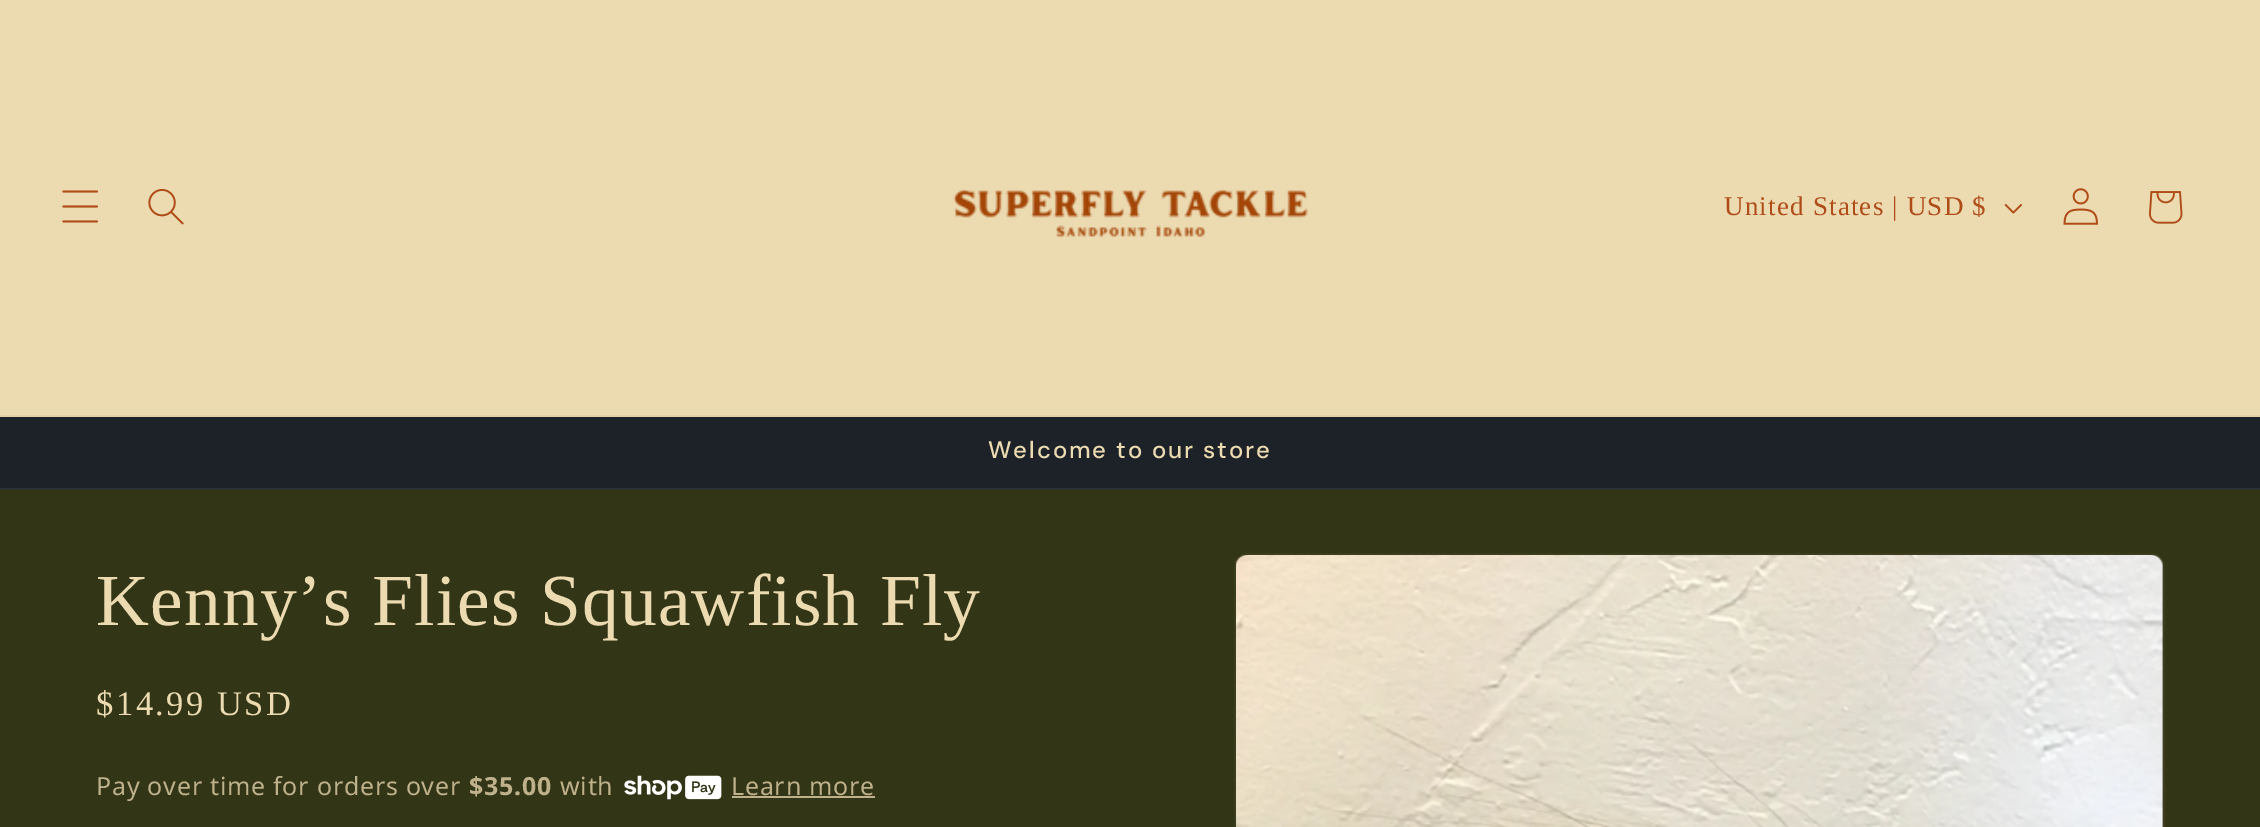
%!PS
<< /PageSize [2260 827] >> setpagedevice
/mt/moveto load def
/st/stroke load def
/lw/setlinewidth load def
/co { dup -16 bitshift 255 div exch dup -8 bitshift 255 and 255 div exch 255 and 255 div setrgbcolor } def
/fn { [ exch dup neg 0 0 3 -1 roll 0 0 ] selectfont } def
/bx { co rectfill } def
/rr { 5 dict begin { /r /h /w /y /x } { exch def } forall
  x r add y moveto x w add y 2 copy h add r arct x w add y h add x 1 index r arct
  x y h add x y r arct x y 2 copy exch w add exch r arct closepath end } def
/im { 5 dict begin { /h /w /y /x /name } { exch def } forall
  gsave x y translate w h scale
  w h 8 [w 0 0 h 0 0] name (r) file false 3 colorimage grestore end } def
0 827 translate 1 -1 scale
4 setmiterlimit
0 0 2260 827 16#333517 bx
0 0 2260 415 16#ECDAB1 bx
0 415 2260 2 16#E7CFA5 bx
(media/1.raw) 62 190 36 33 im
(media/2.raw) 148 188 36 37 im
(media/3.raw) 953 189 355 49 im
(media/4.raw) 2004 204 18 10 im
(media/5.raw) 2063 188 35 37 im
(media/6.raw) 2149 191 34 33 im
0 417 2260 71 16#1C2228 bx
0 488 2260 2 16#2D3133 bx
(media/7.raw) 624 775 98 25 im
732 796 143 2 16#BEB18B bx
16#3C3D1F co
2 lw
1235 554 929 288 13 rr st
(media/8.raw) 1236 555 927 272 im
/LiberationSerif-Regular 27 fn
16#B04C18 co
1724 215 mt 1.2 0 (United States | USD $) ashow
/DMSans-Medium 23.9 fn
16#ECDAB1 co
988 458 mt 1.9 0 (Welcome to our store) ashow
/LiberationSerif-Regular 73.5 fn
96 625 mt 1.1 0 (Kenny’s Flies Squawfish Fly) ashow
/LiberationSerif-Regular 34.5 fn
96 715 mt 2.5 0 ($14.99 USD) ashow
/NotoSans-Regular 25 fn
16#BEB18B co
96 795 mt .75 0 (Pay over time for orders over) ashow
/NotoSans-Bold 25 fn
469 795 mt .75 0 ($35.00) ashow
/NotoSans-Regular 25 fn
560 795 mt .75 0 (with) ashow
731 795 mt .75 0 (Learn more) ashow
showpage
